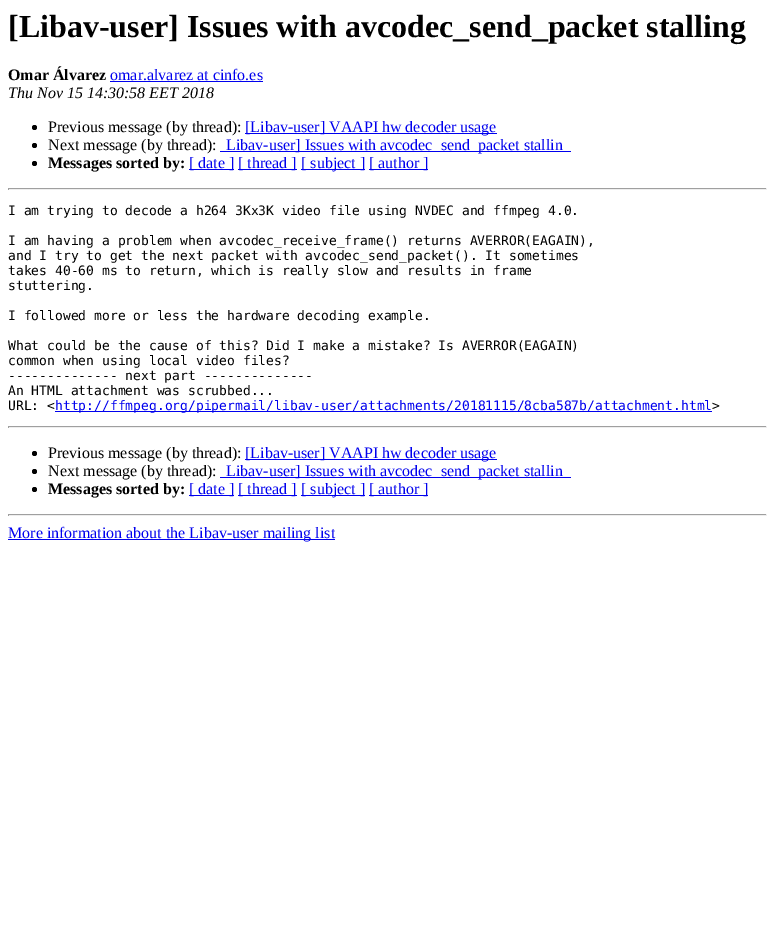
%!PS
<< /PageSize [775 939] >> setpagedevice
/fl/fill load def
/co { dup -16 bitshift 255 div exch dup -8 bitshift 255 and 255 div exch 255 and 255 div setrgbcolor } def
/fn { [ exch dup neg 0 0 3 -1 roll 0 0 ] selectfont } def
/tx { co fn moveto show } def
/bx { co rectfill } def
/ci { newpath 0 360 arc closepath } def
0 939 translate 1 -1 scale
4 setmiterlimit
0 0 775 939 16#FFFFFF bx
110 81 153 1 16#0000EE bx
16#000000 co
34.5 127.5 2.5 ci fl
245 133 252 1 16#0000EE bx
16#000000 co
34.5 145.5 2.5 ci fl
220 151 351 1 16#0000EE bx
16#000000 co
34.5 163.5 2.5 ci fl
189 169 45 1 16#0000EE bx
238 169 59 1 16#0000EE bx
301 169 64 1 16#0000EE bx
369 169 59 1 16#0000EE bx
8 188 759 1 16#9F9F9F bx
766 188 1 2 16#EEEEEE bx
8 189 759 1 16#EEEEEE bx
8 188 1 2 16#9F9F9F bx
55 411 657 1 16#0000EE bx
8 426 759 1 16#9F9F9F bx
766 426 1 2 16#EEEEEE bx
8 427 759 1 16#EEEEEE bx
8 426 1 2 16#9F9F9F bx
16#000000 co
34.5 453.5 2.5 ci fl
245 459 252 1 16#0000EE bx
16#000000 co
34.5 471.5 2.5 ci fl
220 477 351 1 16#0000EE bx
16#000000 co
34.5 489.5 2.5 ci fl
189 495 45 1 16#0000EE bx
238 495 59 1 16#0000EE bx
301 495 64 1 16#0000EE bx
369 495 59 1 16#0000EE bx
8 514 759 1 16#9F9F9F bx
766 514 1 2 16#EEEEEE bx
8 515 759 1 16#EEEEEE bx
8 514 1 2 16#9F9F9F bx
8 539 327 1 16#0000EE bx
([Libav-user] Issues with avcodec_send_packet stalling) 8 37 /LiberationSerif-Bold 32 16#000000 tx
(Omar Álvarez) 8 80 /LiberationSerif-Bold 16 16#000000 tx
(omar.alvarez at cinfo.es) 110 80 /LiberationSerif-Regular 16 16#0000EE tx
(Thu Nov 15 14:30:58 EET 2018) 8 98 /LiberationSerif-Italic 16 16#000000 tx
(Previous message \(by thread\):) 48 132 /LiberationSerif-Regular 16 16#000000 tx
([Libav-user] VAAPI hw decoder usage) 245 132 /LiberationSerif-Regular 16 16#0000EE tx
(Next message \(by thread\):) 48 150 /LiberationSerif-Regular 16 16#000000 tx
(Libav-user] Issues with avcodec_send_packet stallin) 226 150 /LiberationSerif-Regular 16 16#0000EE tx
(Messages sorted by:) 48 168 /LiberationSerif-Bold 16 16#000000 tx
([ date ]) 189 168 /LiberationSerif-Regular 16 16#0000EE tx
([ thread ]) 238 168 /LiberationSerif-Regular 16 16#0000EE tx
([ subject ]) 301 168 /LiberationSerif-Regular 16 16#0000EE tx
([ author ]) 369 168 /LiberationSerif-Regular 16 16#0000EE tx
(I am trying to decode a h264 3Kx3K video file using NVDEC and ffmpeg 4.0.) 8 215 /DejaVuSansMono-Regular 13 16#000000 tx
(I am having a problem when avcodec_receive_frame\(\) returns AVERROR\(EAGAIN\),) 8 245 /DejaVuSansMono-Regular 13 16#000000 tx
(and I try to get the next packet with avcodec_send_packet\(\). It sometimes) 8 260 /DejaVuSansMono-Regular 13 16#000000 tx
(takes 40-60 ms to return, which is really slow and results in frame) 8 275 /DejaVuSansMono-Regular 13 16#000000 tx
(stuttering.) 8 290 /DejaVuSansMono-Regular 13 16#000000 tx
(I followed more or less the hardware decoding example.) 8 320 /DejaVuSansMono-Regular 13 16#000000 tx
(What could be the cause of this? Did I make a mistake? Is AVERROR\(EAGAIN\)) 8 350 /DejaVuSansMono-Regular 13 16#000000 tx
(common when using local video files?) 8 365 /DejaVuSansMono-Regular 13 16#000000 tx
(-------------- next part --------------) 8 380 /DejaVuSansMono-Regular 13 16#000000 tx
(An HTML attachment was scrubbed...) 8 395 /DejaVuSansMono-Regular 13 16#000000 tx
(URL: <) 8 410 /DejaVuSansMono-Regular 13 16#000000 tx
(http://ffmpeg.org/pipermail/libav-user/attachments/20181115/8cba587b/attachment.html) 55 410 /DejaVuSansMono-Regular 13 16#0000EE tx
(>) 712 410 /DejaVuSansMono-Regular 13 16#000000 tx
(Previous message \(by thread\):) 48 458 /LiberationSerif-Regular 16 16#000000 tx
([Libav-user] VAAPI hw decoder usage) 245 458 /LiberationSerif-Regular 16 16#0000EE tx
(Next message \(by thread\):) 48 476 /LiberationSerif-Regular 16 16#000000 tx
(Libav-user] Issues with avcodec_send_packet stallin) 226 476 /LiberationSerif-Regular 16 16#0000EE tx
(Messages sorted by:) 48 494 /LiberationSerif-Bold 16 16#000000 tx
([ date ]) 189 494 /LiberationSerif-Regular 16 16#0000EE tx
([ thread ]) 238 494 /LiberationSerif-Regular 16 16#0000EE tx
([ subject ]) 301 494 /LiberationSerif-Regular 16 16#0000EE tx
([ author ]) 369 494 /LiberationSerif-Regular 16 16#0000EE tx
(More information about the Libav-user mailing list) 8 538 /LiberationSerif-Regular 16 16#0000EE tx
showpage
